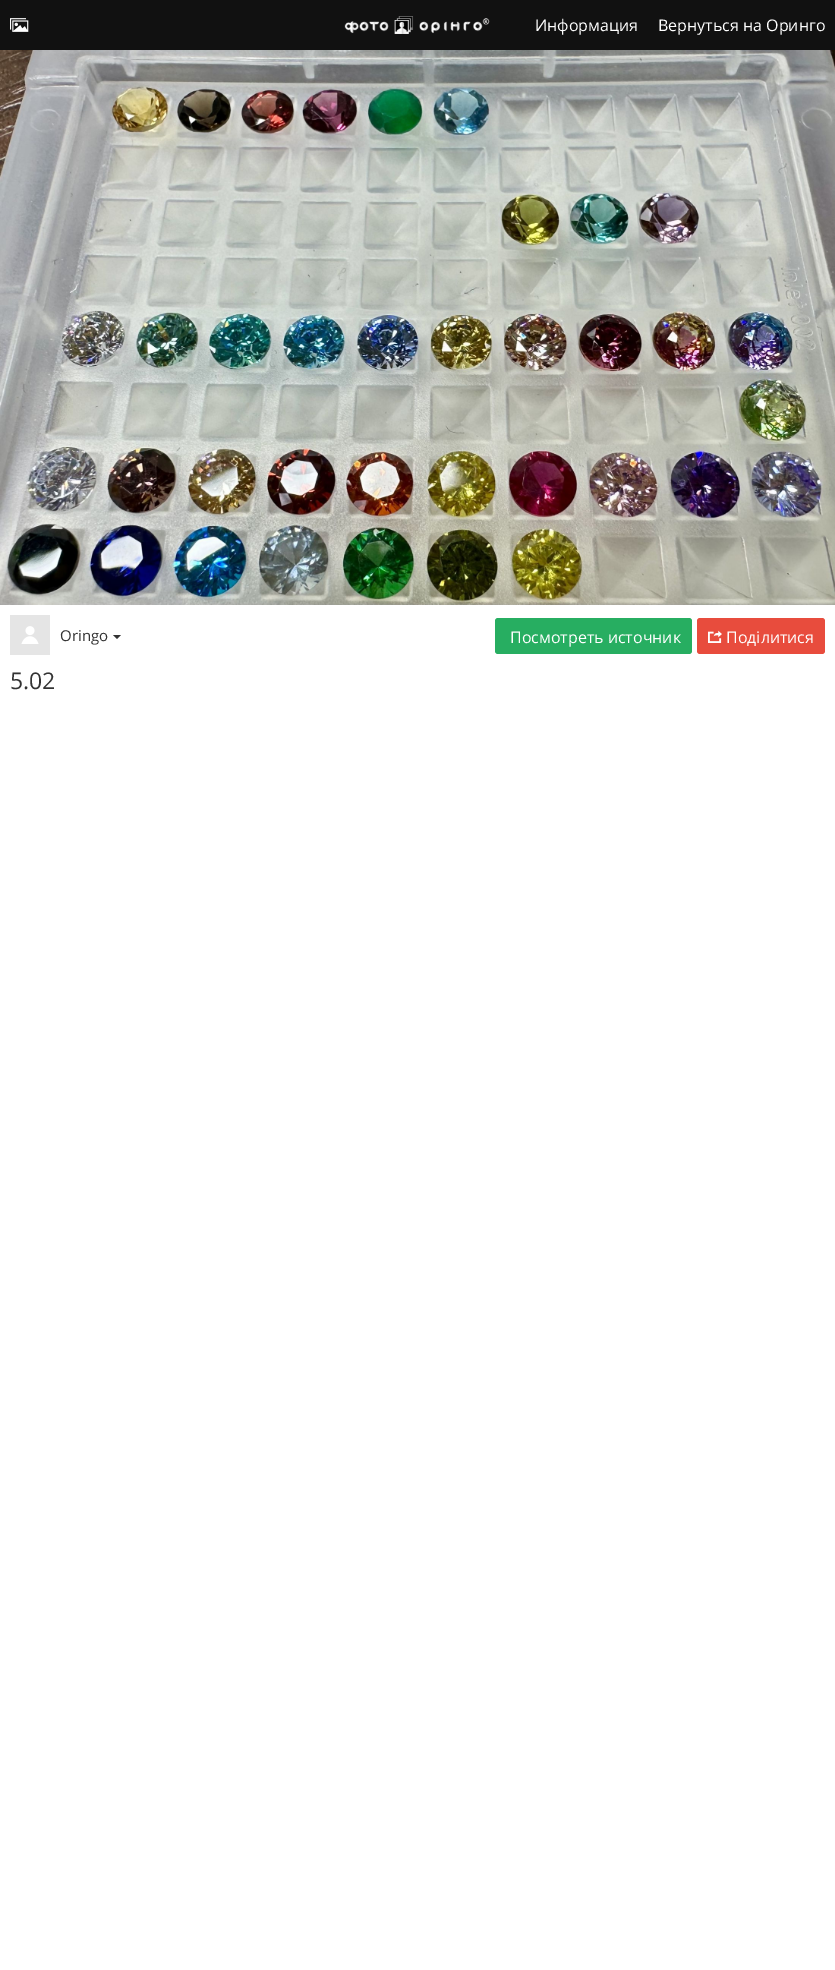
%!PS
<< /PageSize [835 1970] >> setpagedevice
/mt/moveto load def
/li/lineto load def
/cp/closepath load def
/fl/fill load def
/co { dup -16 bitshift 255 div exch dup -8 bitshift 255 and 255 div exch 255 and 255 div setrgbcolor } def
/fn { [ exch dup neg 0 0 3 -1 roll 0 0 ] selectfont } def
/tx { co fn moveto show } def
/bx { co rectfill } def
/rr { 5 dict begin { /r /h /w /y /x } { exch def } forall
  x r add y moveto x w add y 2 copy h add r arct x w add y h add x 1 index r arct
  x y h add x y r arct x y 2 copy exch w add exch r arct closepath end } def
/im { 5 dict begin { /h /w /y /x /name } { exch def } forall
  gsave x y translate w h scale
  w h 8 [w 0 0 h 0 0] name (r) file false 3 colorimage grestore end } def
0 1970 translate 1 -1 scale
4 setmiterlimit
0 0 835 1970 16#FFFFFF bx
0 0 835 50 16#111111 bx
(media/1.raw) 10 18 19 14 im
(media/2.raw) 344 16 146 18 im
(media/3.raw) 0 50 835 555 im
10 615 40 40 16#E5E5E5 bx
(media/4.raw) 21 626 18 18 im
16#333333 co
113 635 mt 121 635 li 117 639 li cp fl
16#27AE61 co
495 618 197 36 3 rr fl
16#E84C3D co
697 618 128 36 3 rr fl
(media/5.raw) 708 630 14 13 im
(Информация) 535 31 /OpenSans-Regular 16 16#FFFFFF tx
(Вернуться на Оринго) 658 31 /OpenSans-Regular 16 16#FFFFFF tx
(Oringo) 60 641 /OpenSans-Regular 15 16#333333 tx
(Посмотреть источник) 510 643 /OpenSans-Regular 16 16#FFFFFF tx
(Поділитися) 726 643 /OpenSans-Regular 16 16#FFFFFF tx
(5.02) 10 689 /OpenSans-Regular 23 16#333333 tx
showpage
